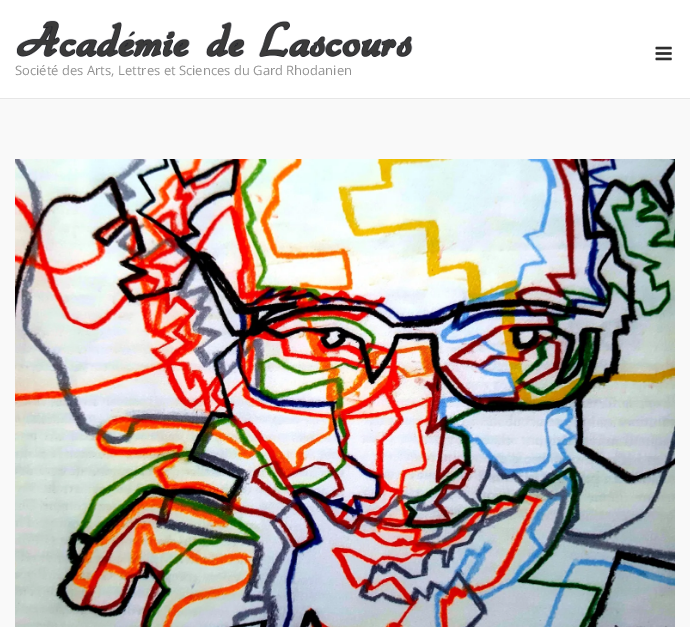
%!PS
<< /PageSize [690 627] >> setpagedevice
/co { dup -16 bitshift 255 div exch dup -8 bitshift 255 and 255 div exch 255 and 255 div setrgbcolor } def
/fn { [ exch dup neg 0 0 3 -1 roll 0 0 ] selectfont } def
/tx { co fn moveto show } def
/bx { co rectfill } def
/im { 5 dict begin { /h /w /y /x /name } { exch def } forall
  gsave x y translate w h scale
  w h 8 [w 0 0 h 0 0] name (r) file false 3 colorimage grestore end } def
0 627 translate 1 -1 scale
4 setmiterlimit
0 0 690 627 16#F9F9F9 bx
0 0 690 98 16#FFFFFF bx
0 98 690 1 16#E6E6E6 bx
(media/1.raw) 655 46 17 15 im
(media/2.raw) 16 20 397 37 im
(media/3.raw) 15 159 660 468 im
(Société des Arts, Lettres et Sciences du Gard Rhodanien) 15 75 /OpenSans-Regular 13 16#929292 tx
showpage
